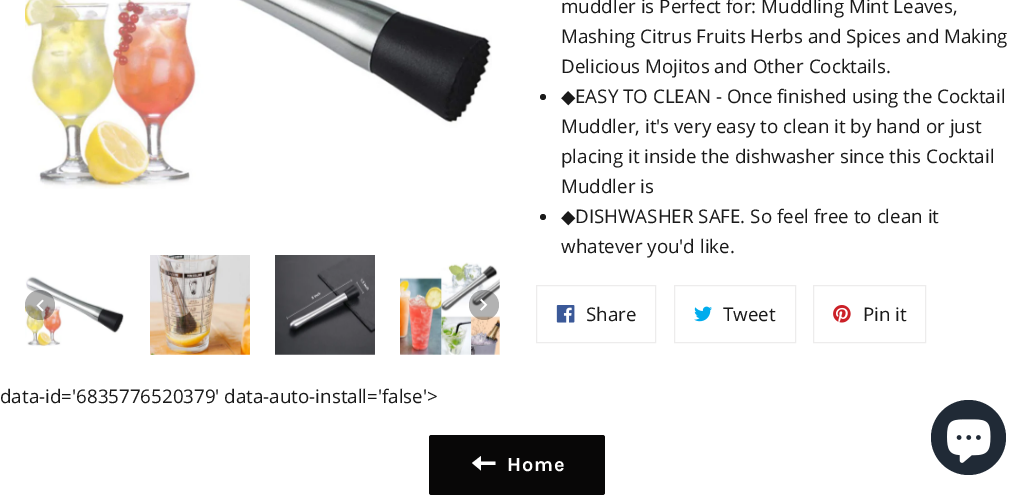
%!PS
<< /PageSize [1033 501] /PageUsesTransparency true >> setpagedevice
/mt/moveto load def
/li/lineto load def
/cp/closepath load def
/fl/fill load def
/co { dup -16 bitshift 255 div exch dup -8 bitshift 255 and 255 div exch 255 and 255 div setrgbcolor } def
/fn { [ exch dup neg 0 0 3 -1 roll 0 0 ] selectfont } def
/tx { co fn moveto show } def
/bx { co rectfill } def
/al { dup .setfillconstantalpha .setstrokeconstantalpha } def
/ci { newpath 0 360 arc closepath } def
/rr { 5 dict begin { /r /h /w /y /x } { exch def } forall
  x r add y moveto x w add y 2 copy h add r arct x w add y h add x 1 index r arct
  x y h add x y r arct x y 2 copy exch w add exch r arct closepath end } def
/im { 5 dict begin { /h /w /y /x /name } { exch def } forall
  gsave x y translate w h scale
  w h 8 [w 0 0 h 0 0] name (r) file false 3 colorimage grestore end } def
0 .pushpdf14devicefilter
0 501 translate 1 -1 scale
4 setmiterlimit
0 0 1033 501 16#FFFFFF bx
(media/1.raw) 25 0 467 189 im
(media/2.raw) 25 276 99 71 im
(media/3.raw) 150 255 100 100 im
(media/4.raw) 275 255 100 100 im
(media/5.raw) 400 262 100 93 im
0.3 al
16#000000 co
40 305 15 ci fl
1 al
(media/6.raw) 36 299 8 13 im
0.3 al
484 305 15 ci fl
1 al
(media/7.raw) 480 298 8 13 im
16#1A1A1A co
543 97 3 ci fl
543 217 3 ci fl
16#EDECEC co
536.5 285.5 119 57 rectstroke
(media/8.raw) 556 305 19 18 im
674.5 285.5 121 57 rectstroke
(media/9.raw) 694 306 18 16 im
813.5 285.5 112 57 rectstroke
(media/10.raw) 833 305 18 18 im
16#080707 co
429 435 176 60 2.5 rr fl
16#FFFFFF co
481 461.5 mt 481 456 li 472 463 li 481 470.5 li 481 465 li 495.5 465 li 495.5 461.5 li cp fl
16#202A36 co
968.5 437.5 37.5 ci fl
(media/11.raw) 947 419 44 44 im
(muddler is Perfect for: Muddling Mint Leaves,) 561 13 /OpenSans-Regular 18.75 16#1A1A1A tx
(Mashing Citrus Fruits Herbs and Spices and Making) 561 43 /OpenSans-Regular 18.75 16#1A1A1A tx
(Delicious Mojitos and Other Cocktails.) 561 73 /OpenSans-Regular 18.75 16#1A1A1A tx
(◆) 561 103 /DejaVuSans-Regular 18.75 16#1A1A1A tx
(EASY TO CLEAN - Once finished using the Cocktail) 575 103 /OpenSans-Regular 18.75 16#1A1A1A tx
(Muddler, it's very easy to clean it by hand or just) 561 133 /OpenSans-Regular 18.75 16#1A1A1A tx
(placing it inside the dishwasher since this Cocktail) 561 163 /OpenSans-Regular 18.75 16#1A1A1A tx
(Muddler is) 561 193 /OpenSans-Regular 18.75 16#1A1A1A tx
(◆) 561 223 /DejaVuSans-Regular 18.75 16#1A1A1A tx
(DISHWASHER SAFE. So feel free to clean it) 575 223 /OpenSans-Regular 18.75 16#1A1A1A tx
(whatever you'd like.) 561 253 /OpenSans-Regular 18.75 16#1A1A1A tx
(Share) 586 321 /OpenSans-Regular 18.75 16#1A1A1A tx
(Tweet) 723 321 /OpenSans-Regular 18.75 16#1A1A1A tx
(Pin it) 863 321 /OpenSans-Regular 18.75 16#1A1A1A tx
(data-id='6835776520379' data-auto-install='false'>) 0 403 /OpenSans-Regular 18.75 16#1A1A1A tx
/Karla-Bold 20 fn
16#FFFFFF co
507 471 mt 1 0 (Home) ashow
.poppdf14devicefilter showpage
